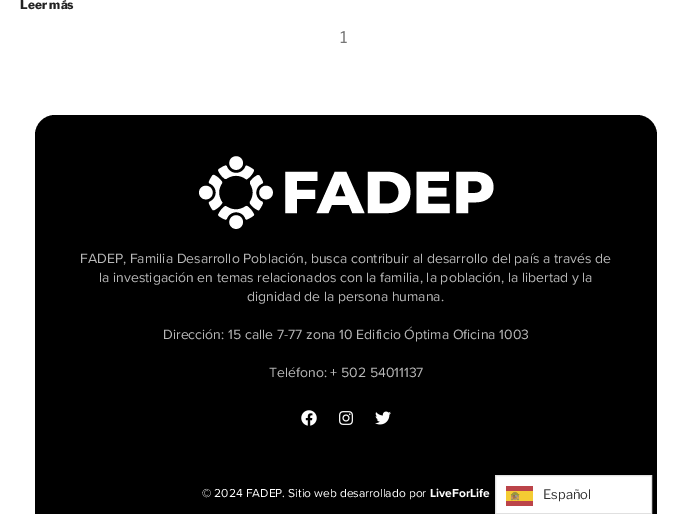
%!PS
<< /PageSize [692 514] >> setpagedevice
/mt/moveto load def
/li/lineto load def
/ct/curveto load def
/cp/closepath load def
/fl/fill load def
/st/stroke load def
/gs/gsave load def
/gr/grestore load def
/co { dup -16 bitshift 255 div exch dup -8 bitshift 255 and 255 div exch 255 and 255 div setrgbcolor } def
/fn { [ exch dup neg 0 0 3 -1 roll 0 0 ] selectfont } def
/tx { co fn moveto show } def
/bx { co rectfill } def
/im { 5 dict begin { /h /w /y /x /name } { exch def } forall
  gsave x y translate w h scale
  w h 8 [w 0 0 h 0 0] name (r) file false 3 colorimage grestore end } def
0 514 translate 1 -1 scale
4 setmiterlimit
0 0 692 514 16#FFFFFF bx
16#000000 co
55 115 mt 637 115 li 648 115 657 124 657 135 ct 657 456 li 35 456 li 35 135 li 35 124 44 115 55 115 ct cp fl
(media/1.raw) 199 156 295 73 im
(media/2.raw) 301 410 16 16 im
(media/3.raw) 339 411 14 14 im
(media/4.raw) 375 411 16 14 im
35 456 622 58 16#000000 bx
16#FFFFFF co
495.5 475.5 mt 651.5 475.5 li 651.5 513.5 li 495.5 513.5 li cp gs fl gr
16#E0E0E0 co
st
(media/5.raw) 506 486 27 20 im
(Leer más) 20 9 /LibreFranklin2-Thin 12 16#222222 tx
(1) 340 43 /LibreFranklin-Thin 16 16#767676 tx
(FADEP, Familia Desarrollo Población, busca contribuir al desarrollo del país a través de) 80 263 /ProximaNova-Regular 14 16#B8B8B8 tx
(la investigación en temas relacionados con la familia, la población, la libertad y la) 99 282 /ProximaNova-Regular 14 16#B8B8B8 tx
(dignidad de la persona humana.) 247 301 /ProximaNova-Regular 14 16#B8B8B8 tx
(Dirección: 15 calle 7-77 zona 10 Edificio Óptima Oficina 1003) 163 339 /ProximaNova-Regular 14 16#B8B8B8 tx
(Teléfono: + 502 54011137) 269 377 /ProximaNova-Regular 14 16#B8B8B8 tx
(© 2024 FADEP. Sitio web desarrollado por) 202 497 /ProximaNova-Regular 12 16#FFFFFF tx
(LiveForLife) 430 497 /ProximaNova-Bold 12 16#FFFFFF tx
(Español) 543 499 /LibreFranklin-Thin 13 16#333333 tx
showpage
